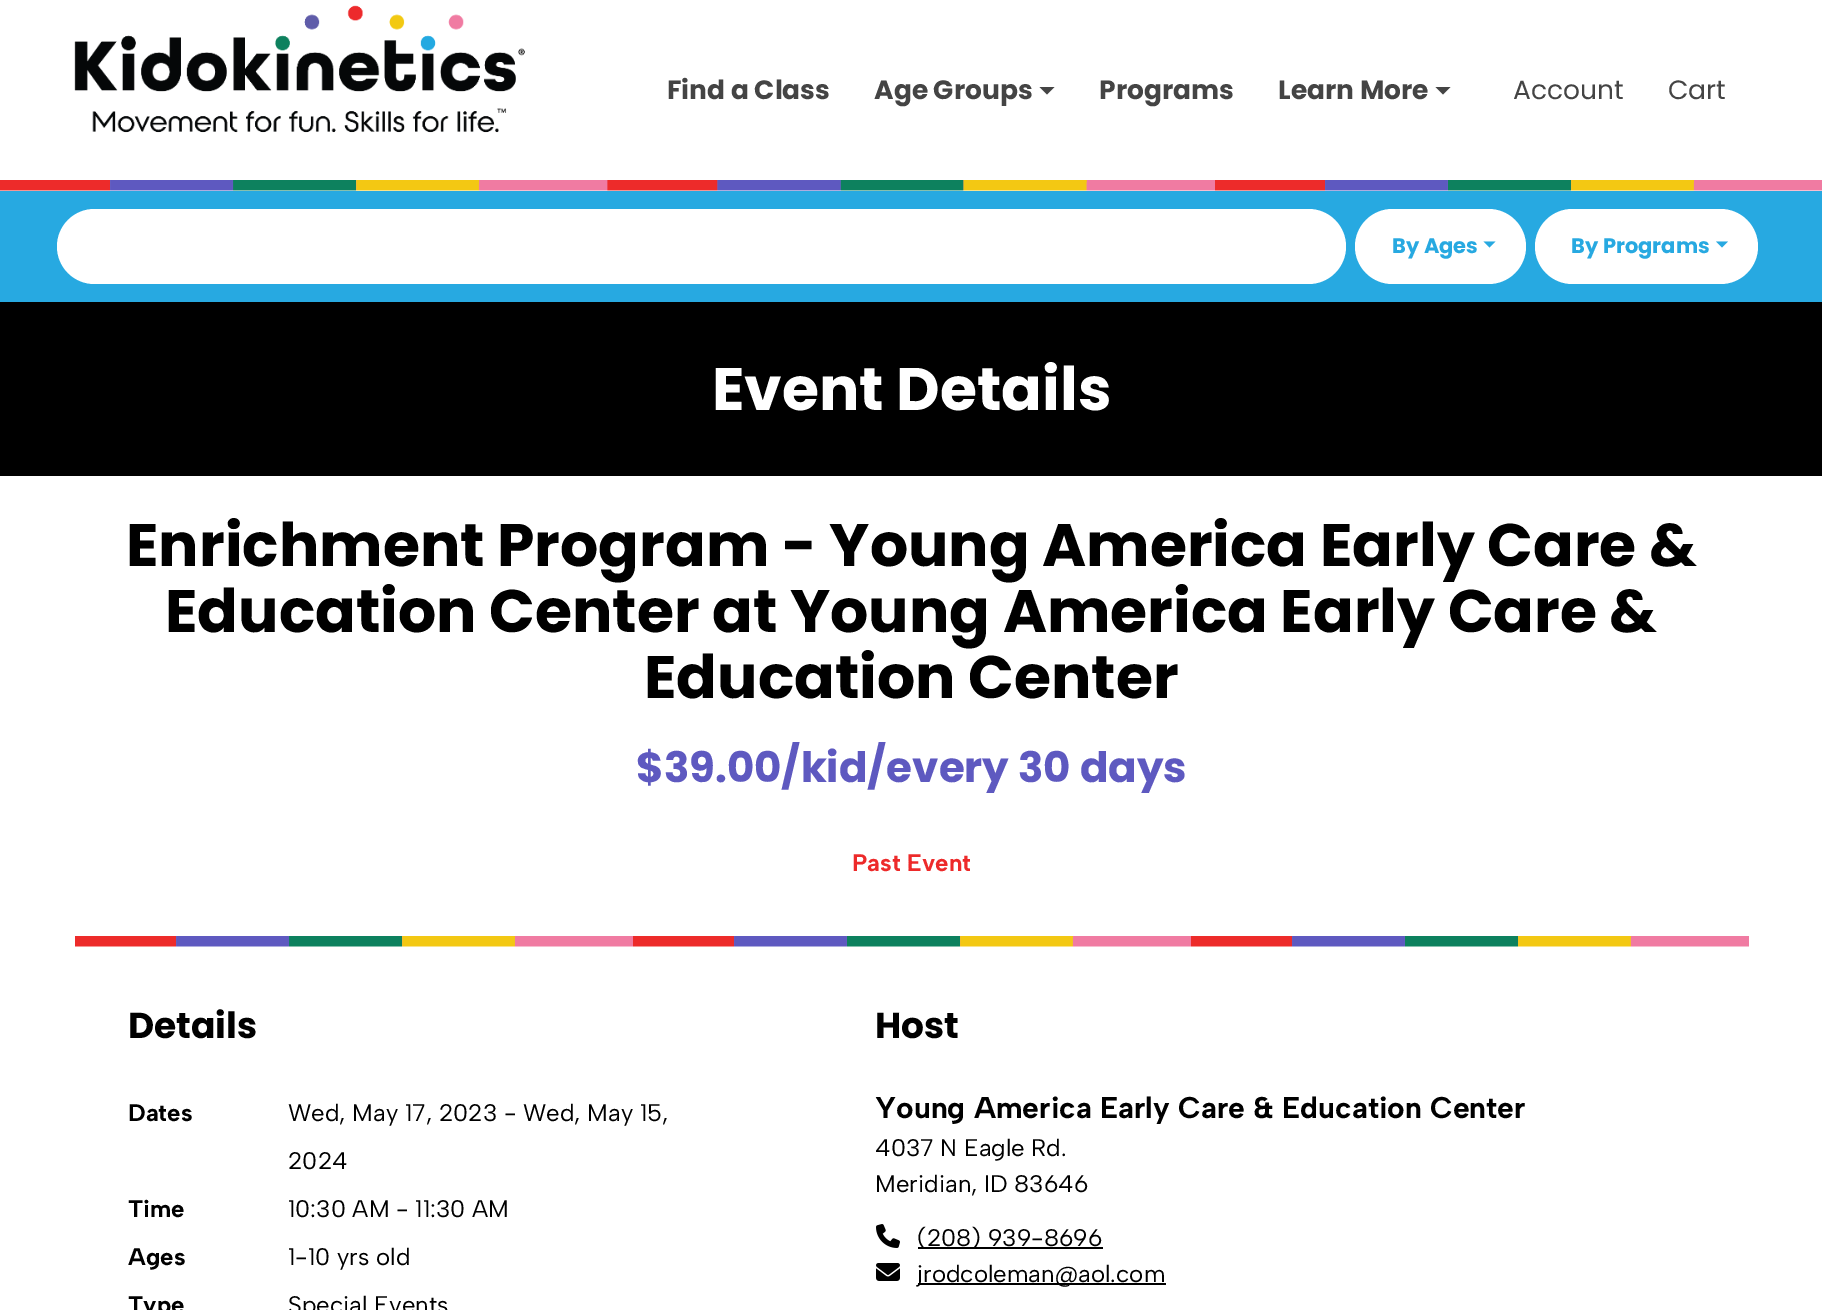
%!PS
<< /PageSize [1822 1310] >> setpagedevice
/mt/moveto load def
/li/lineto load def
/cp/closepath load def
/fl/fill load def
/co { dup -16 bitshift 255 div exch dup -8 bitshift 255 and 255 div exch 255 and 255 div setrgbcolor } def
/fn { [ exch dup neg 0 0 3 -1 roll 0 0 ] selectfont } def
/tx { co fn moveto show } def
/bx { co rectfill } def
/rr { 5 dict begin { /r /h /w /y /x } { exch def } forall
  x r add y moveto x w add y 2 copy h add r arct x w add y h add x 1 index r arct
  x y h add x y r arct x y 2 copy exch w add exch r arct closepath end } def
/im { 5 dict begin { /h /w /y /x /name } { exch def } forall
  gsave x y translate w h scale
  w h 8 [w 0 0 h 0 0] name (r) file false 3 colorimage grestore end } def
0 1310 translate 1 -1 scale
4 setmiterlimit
0 0 1822 1310 16#FFFFFF bx
(media/1.raw) 74 5 451 128 im
16#444444 co
1039.5 87 mt 1054.5 87 li 1047 94.5 li cp fl
1435.5 87 mt 1450.5 87 li 1443 94.5 li cp fl
(media/2.raw) 0 180 1822 11 im
0 191 1822 111 16#27A9E1 bx
16#FFFFFF co
57 209 1289 75 37.5 rr fl
1355 209 171 75 37.5 rr fl
16#27A9E1 co
1483.5 241.5 mt 1495.5 241.5 li 1489.5 247.5 li cp fl
16#FFFFFF co
1535 209 223 75 37.5 rr fl
16#27A9E1 co
1716 241.5 mt 1728 241.5 li 1722 247.5 li cp fl
0 302 1822 174 16#000000 bx
(media/3.raw) 75 936 1674 11 im
(media/4.raw) 876 1224 24 24 im
918 1247 185 2 16#000000 bx
(media/5.raw) 876 1263 24 18 im
918 1283 248 2 16#000000 bx
(Find a Class) 667 99 /Poppins-Bold 26.5 16#444444 tx
(Age Groups) 874 99 /Poppins-Bold 26.5 16#444444 tx
(Programs) 1099 99 /Poppins-Bold 26.5 16#444444 tx
(Learn More) 1278 99 /Poppins-Bold 26.5 16#444444 tx
(Account) 1513 99 /Poppins-Regular 26.5 16#444444 tx
(Cart) 1668 99 /Poppins-Regular 26.5 16#444444 tx
(By Ages) 1392 253 /Poppins-Bold 21 16#27A9E1 tx
(By Programs) 1571 253 /Poppins-Bold 21 16#27A9E1 tx
(Event Details) 712 410 /Poppins-Bold 60 16#FFFFFF tx
(Enrichment Program - Young America Early Care &) 126 566 /Poppins-Bold 60 16#000000 tx
(Education Center at Young America Early Care &) 165 632 /Poppins-Bold 60 16#000000 tx
(Education Center) 644 698 /Poppins-Bold 60 16#000000 tx
($39.00/kid/every 30 days) 636 782 /Poppins-Bold 42 16#5E59C0 tx
(Past Event) 852 871 /AlbertSans-Bold 24 16#ED2A2A tx
(Details) 128 1038 /Poppins-Bold 36 16#000000 tx
(Dates) 128 1121 /AlbertSans-Bold 24 16#000000 tx
(Wed, May 17, 2023 - Wed, May 15,) 288 1121 /AlbertSans-Regular 24 16#000000 tx
(2024) 288 1169 /AlbertSans-Regular 24 16#000000 tx
(Time) 128 1217 /AlbertSans-Bold 24 16#000000 tx
(10:30 AM - 11:30 AM) 288 1217 /AlbertSans-Regular 24 16#000000 tx
(Ages) 128 1265 /AlbertSans-Bold 24 16#000000 tx
(1-10 yrs old) 288 1265 /AlbertSans-Regular 24 16#000000 tx
(Type) 128 1313 /AlbertSans-Bold 24 16#000000 tx
(Special Events) 288 1313 /AlbertSans-Regular 24 16#000000 tx
(Host) 875 1038 /Poppins-Bold 36 16#000000 tx
(Young America Early Care & Education Center) 875 1118 /AlbertSans-Bold 30 16#000000 tx
(4037 N Eagle Rd.) 875 1156 /AlbertSans-Regular 24 16#000000 tx
(Meridian, ID 83646) 875 1192 /AlbertSans-Regular 24 16#000000 tx
(\(208\) 939-8696) 917 1246 /AlbertSans-Regular 24 16#000000 tx
(jrodcoleman@aol.com) 917 1282 /AlbertSans-Regular 24 16#000000 tx
showpage
